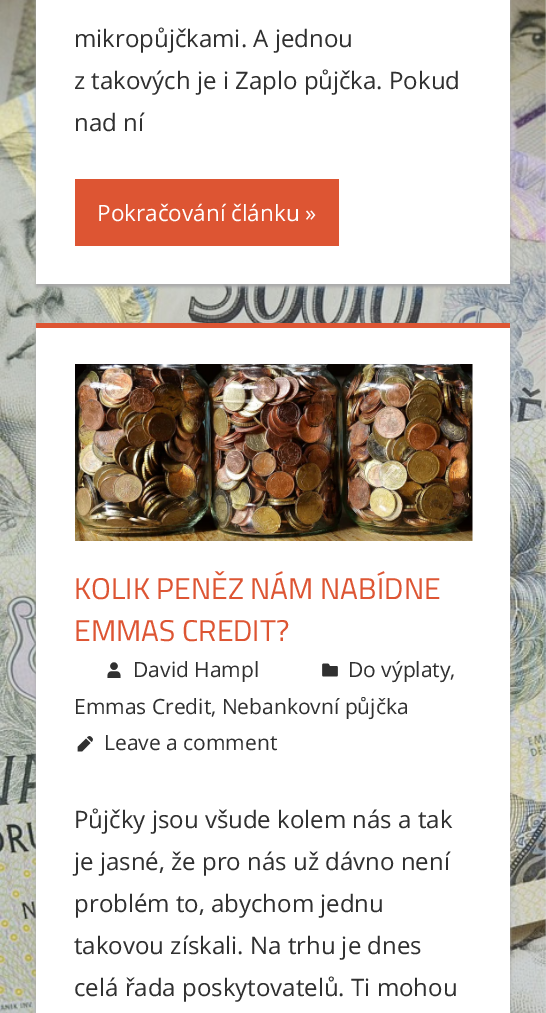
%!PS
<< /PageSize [546 1013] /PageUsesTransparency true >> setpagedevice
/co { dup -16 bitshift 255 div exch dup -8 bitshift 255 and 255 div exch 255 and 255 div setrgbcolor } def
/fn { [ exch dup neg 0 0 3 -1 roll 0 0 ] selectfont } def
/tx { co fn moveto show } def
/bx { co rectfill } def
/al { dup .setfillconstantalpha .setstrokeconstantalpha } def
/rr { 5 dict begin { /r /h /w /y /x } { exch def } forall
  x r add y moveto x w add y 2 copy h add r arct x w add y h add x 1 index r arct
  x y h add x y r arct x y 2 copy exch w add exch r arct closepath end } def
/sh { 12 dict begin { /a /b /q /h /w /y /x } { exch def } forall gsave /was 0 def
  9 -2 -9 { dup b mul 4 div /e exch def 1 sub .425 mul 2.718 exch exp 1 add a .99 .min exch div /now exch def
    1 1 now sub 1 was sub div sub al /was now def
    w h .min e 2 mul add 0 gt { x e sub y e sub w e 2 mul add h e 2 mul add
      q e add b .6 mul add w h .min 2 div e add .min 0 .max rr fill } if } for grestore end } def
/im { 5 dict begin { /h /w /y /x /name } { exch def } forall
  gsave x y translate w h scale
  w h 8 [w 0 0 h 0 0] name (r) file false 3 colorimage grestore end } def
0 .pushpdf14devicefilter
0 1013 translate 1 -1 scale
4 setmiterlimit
0 0 546 1013 16#FFFFFF bx
(media/1.raw) 0 0 546 1013 im
16#AAAAAA co
36 -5 474 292 0 1.5 1 sh
36 0 474 284 16#FFFFFF bx
75 179 264 67 16#DD5533 bx
16#AAAAAA co
36 326 474 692 0 1.5 1 sh
36 328 474 685 16#FFFFFF bx
36 323 474 5 16#DD5533 bx
(media/2.raw) 75 364 398 177 im
(media/3.raw) 107 662 14 16 im
(media/4.raw) 322 663 16 14 im
(media/5.raw) 77 736 16 16 im
(mikropůjčkami. A jednou) 74 47 /OpenSans-Regular 24 16#303030 tx
(z takových je i Zaplo půjčka. Pokud) 74 89 /OpenSans-Regular 24 16#303030 tx
(nad ní) 74 131 /OpenSans-Regular 24 16#303030 tx
(Pokračování článku ») 97 221 /OpenSans-Regular 22.5 16#FFFFFF tx
(KOLIK PENĚZ NÁM NABÍDNE) 74 599 /TitilliumWeb-Regular 30 16#DD5533 tx
(EMMAS CREDIT?) 74 641 /TitilliumWeb-Regular 30 16#DD5533 tx
(David Hampl) 133 677 /OpenSans-Regular 21 16#303030 tx
(Do výplaty,) 348 677 /OpenSans-Regular 21 16#303030 tx
(Emmas Credit, Nebankovní půjčka) 74 714 /OpenSans-Regular 21 16#303030 tx
(Leave a comment) 104 750 /OpenSans-Regular 21 16#303030 tx
(Půjčky jsou všude kolem nás a tak) 74 828 /OpenSans-Regular 24 16#303030 tx
(je jasné, že pro nás už dávno není) 74 870 /OpenSans-Regular 24 16#303030 tx
(problém to, abychom jednu) 74 912 /OpenSans-Regular 24 16#303030 tx
(takovou získali. Na trhu je dnes) 74 954 /OpenSans-Regular 24 16#303030 tx
(celá řada poskytovatelů. Ti mohou) 74 996 /OpenSans-Regular 24 16#303030 tx
.poppdf14devicefilter showpage
